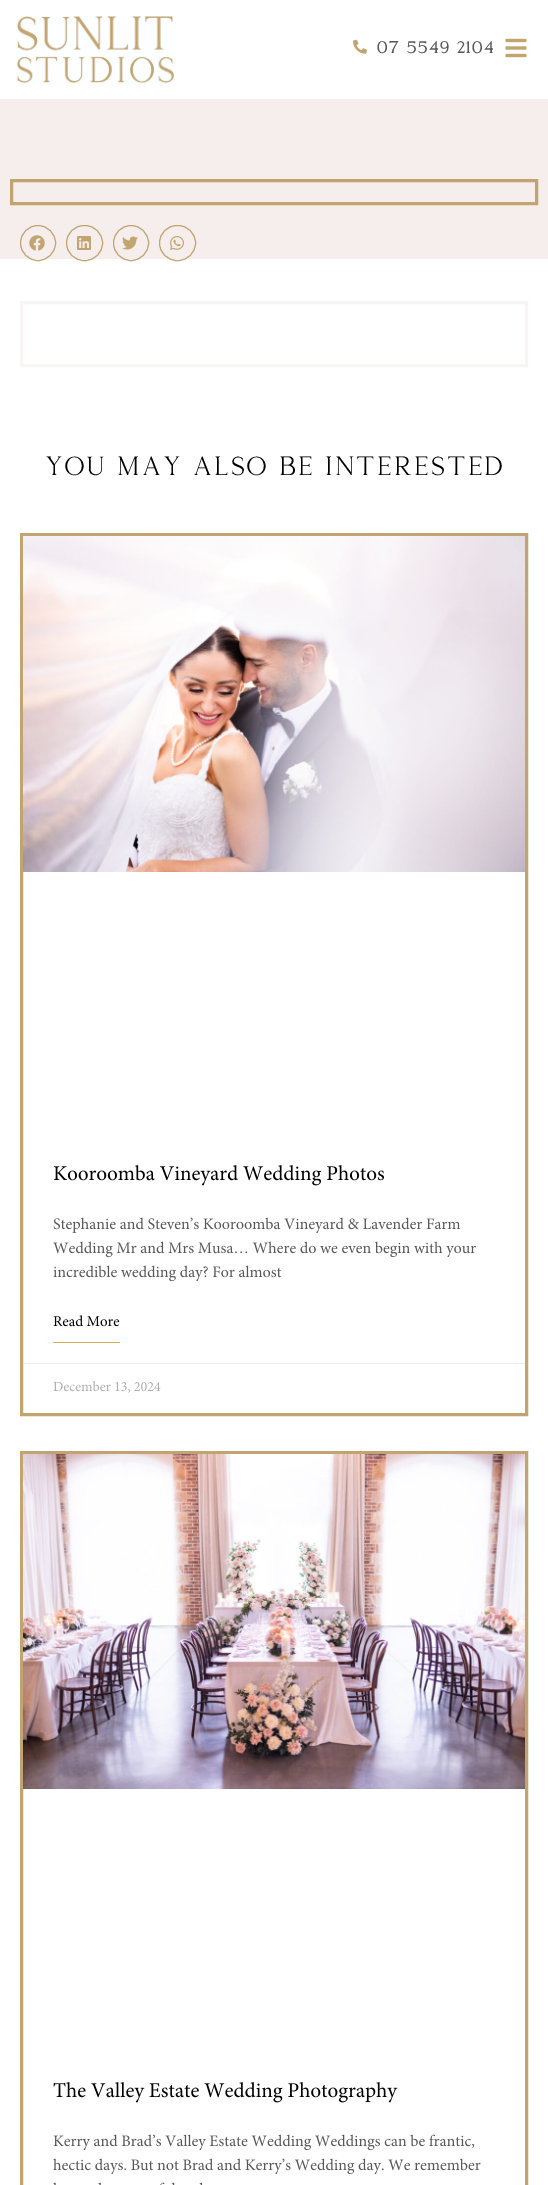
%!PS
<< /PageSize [548 2185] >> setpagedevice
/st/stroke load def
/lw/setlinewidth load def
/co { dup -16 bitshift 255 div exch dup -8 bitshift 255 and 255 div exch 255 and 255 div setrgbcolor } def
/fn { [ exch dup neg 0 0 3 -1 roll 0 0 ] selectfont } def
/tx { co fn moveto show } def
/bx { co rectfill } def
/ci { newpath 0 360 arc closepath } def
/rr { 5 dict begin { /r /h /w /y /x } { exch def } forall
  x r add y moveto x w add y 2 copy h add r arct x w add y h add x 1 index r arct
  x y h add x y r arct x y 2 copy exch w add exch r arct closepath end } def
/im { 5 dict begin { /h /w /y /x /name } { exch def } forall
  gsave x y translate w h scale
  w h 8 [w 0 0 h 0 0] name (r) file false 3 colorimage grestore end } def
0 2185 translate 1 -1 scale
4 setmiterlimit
0 0 548 2185 16#FFFFFF bx
(media/1.raw) 16 16 158 68 im
(media/2.raw) 353 39 14 15 im
(media/3.raw) 505 38 22 20 im
0 99 548 160 16#F5EEED bx
16#C2A470 co
3 lw
11.5 180.5 525 23 rectstroke
1 lw
38 243 17.5 ci st
(media/4.raw) 29 235 16 16 im
66.5 225.5 36 35 17.5 rr st
(media/5.raw) 77 236 14 14 im
131 243 17.5 ci st
(media/6.raw) 122 236 16 14 im
159.5 225.5 36 35 17.5 rr st
(media/7.raw) 170 236 14 14 im
16#F9F5F4 co
3 lw
21.5 302.5 505 63 rectstroke
16#C2A470 co
21.5 534.5 505 880 rectstroke
(media/8.raw) 23 536 502 336 im
(media/9.raw) 53 1165 332 21 im
(media/10.raw) 53 1217 408 17 im
(media/11.raw) 53 1241 423 17 im
(media/12.raw) 53 1265 229 17 im
53 1342 67 1 16#CFAD5D bx
(media/13.raw) 53 1315 67 12 im
23 1363 502 1 16#EAEAEA bx
(media/14.raw) 53 1381 108 12 im
16#C2A470 co
21.5 1452.5 505 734 rectstroke
(media/15.raw) 23 1454 502 335 im
(media/16.raw) 53 2082 345 21 im
(media/17.raw) 53 2134 422 17 im
(media/18.raw) 53 2158 428 17 im
(media/19.raw) 53 2182 150 3 im
(07 5549 2104) 376 53 /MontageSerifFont-Bold 16 16#575757 tx
(You may also be interested) 44 475 /MontageSerifFont-Regular 26 16#000000 tx
showpage
